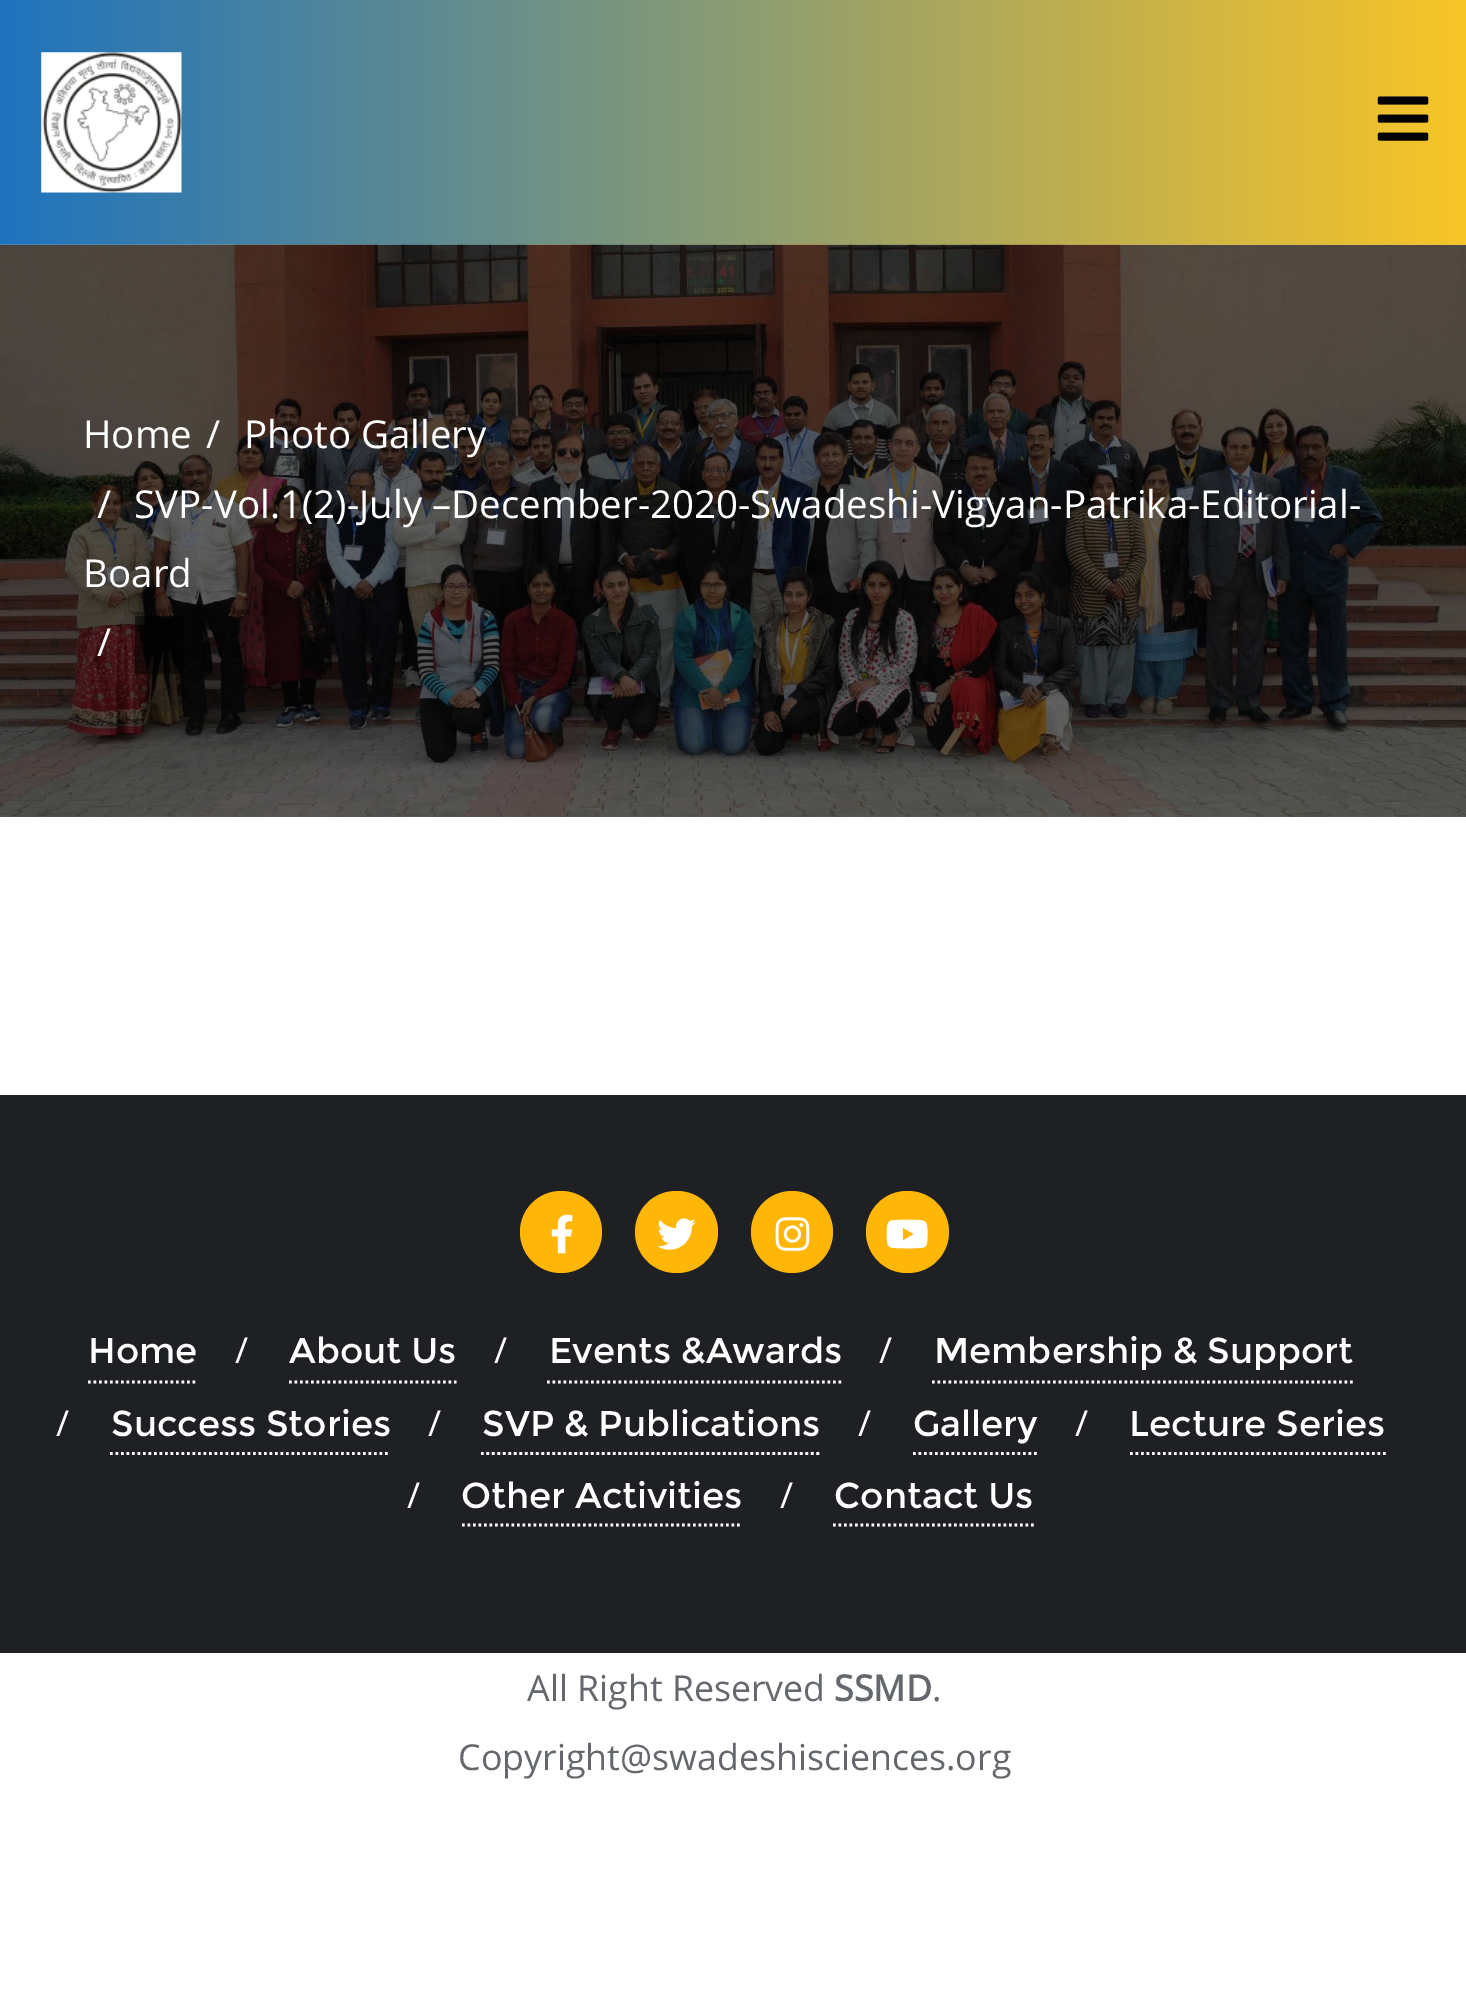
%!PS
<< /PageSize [1466 2000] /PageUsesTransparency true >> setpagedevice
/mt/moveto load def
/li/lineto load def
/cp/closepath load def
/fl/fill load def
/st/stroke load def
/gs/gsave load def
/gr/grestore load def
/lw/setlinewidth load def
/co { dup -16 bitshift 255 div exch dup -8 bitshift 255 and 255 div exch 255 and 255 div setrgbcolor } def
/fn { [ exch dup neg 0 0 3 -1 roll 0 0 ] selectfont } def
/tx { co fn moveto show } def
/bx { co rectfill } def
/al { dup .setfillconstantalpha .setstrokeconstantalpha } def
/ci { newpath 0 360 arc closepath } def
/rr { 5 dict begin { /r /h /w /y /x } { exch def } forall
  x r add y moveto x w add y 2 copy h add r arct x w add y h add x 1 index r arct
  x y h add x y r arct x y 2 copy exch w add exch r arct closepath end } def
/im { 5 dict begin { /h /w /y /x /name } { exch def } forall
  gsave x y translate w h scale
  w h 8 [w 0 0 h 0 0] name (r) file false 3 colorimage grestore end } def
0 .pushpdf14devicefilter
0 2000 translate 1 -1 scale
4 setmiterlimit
0 0 1466 2000 16#FFFFFF bx
gs 0 0 mt 1466 0 li 1466 245 li 0 245 li cp clip newpath
<< /ShadingType 2 /ColorSpace /DeviceRGB /Coords [0 122 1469 122] /Extend [true true] /Function << /FunctionType 2 /Domain [0 1] /C0 [.118 .451 .745] /C1 [.976 .773 .153] /N 1 >> >> shfill gr
(media/1.raw) 41 52 141 141 im
(media/2.raw) 1377 96 52 45 im
(media/3.raw) 0 244 1466 573 im
0.5 al
135 616 49 58 16#000000 bx
1 al
0 1095 1466 558 16#1F2024 bx
16#FFB606 co
561 1232 41 ci fl
(media/4.raw) 551 1214 22 40 im
635 1191 83 82 41 rr fl
(media/5.raw) 657 1218 39 32 im
792 1232 41 ci fl
(media/6.raw) 775 1217 35 34 im
866 1191 83 82 41 rr fl
(media/7.raw) 886 1219 42 30 im
16#FFFFFF co
2.8 lw
[2.75 2.75] 0 setdash
88 1382 mt 198 1382 li st
289 1382 mt 456.5 1382 li st
547 1382 mt 841.5 1382 li st
932 1382 mt 1353 1382 li st
110 1453.5 mt 390.5 1453.5 li st
481 1453.5 mt 819.5 1453.5 li st
913 1453.5 mt 1037 1453.5 li st
1130 1453.5 mt 1386 1453.5 li st
462 1525 mt 742.5 1525 li st
833 1525 mt 1034 1525 li st
(Home) 83 448 /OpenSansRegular-Regular 38.5 16#FFFFFF tx
(/) 206 448 /OpenSansRegular-Regular 38.5 16#FFFFFF tx
(Photo Gallery) 244 448 /OpenSansRegular-Regular 38.5 16#FFFFFF tx
(/) 97 518 /OpenSansRegular-Regular 38.5 16#FFFFFF tx
(SVP-Vol.1\(2\)-July –December-2020-Swadeshi-Vigyan-Patrika-Editorial-) 134 518 /OpenSansRegular-Regular 38.5 16#FFFFFF tx
(Board) 83 587 /OpenSansRegular-Regular 38.5 16#FFFFFF tx
(/) 97 656 /OpenSansRegular-Regular 38.5 16#FFFFFF tx
(Home) 88 1363 /Montserrat-Regular 35.75 16#FFFFFF tx
(/) 235 1363 /OpenSansRegular-Regular 35.75 16#FFFFFF tx
(About Us) 289 1363 /Montserrat-Regular 35.75 16#FFFFFF tx
(/) 494 1363 /OpenSansRegular-Regular 35.75 16#FFFFFF tx
(Events &Awards) 549 1363 /Montserrat-Regular 35.75 16#FFFFFF tx
(/) 879 1363 /OpenSansRegular-Regular 35.75 16#FFFFFF tx
(Membership & Support) 934 1363 /Montserrat-Regular 35.75 16#FFFFFF tx
(/) 56 1436 /OpenSansRegular-Regular 35.75 16#FFFFFF tx
(Success Stories) 111 1436 /Montserrat-Regular 35.75 16#FFFFFF tx
(/) 428 1436 /OpenSansRegular-Regular 35.75 16#FFFFFF tx
(SVP & Publications) 482 1436 /Montserrat-Regular 35.75 16#FFFFFF tx
(/) 858 1436 /OpenSansRegular-Regular 35.75 16#FFFFFF tx
(Gallery) 913 1436 /Montserrat-Regular 35.75 16#FFFFFF tx
(/) 1075 1436 /OpenSansRegular-Regular 35.75 16#FFFFFF tx
(Lecture Series) 1129 1436 /Montserrat-Regular 35.75 16#FFFFFF tx
(/) 407 1508 /OpenSansRegular-Regular 35.75 16#FFFFFF tx
(Other Activities) 461 1508 /Montserrat-Regular 35.75 16#FFFFFF tx
(/) 780 1508 /OpenSansRegular-Regular 35.75 16#FFFFFF tx
(Contact Us) 834 1508 /Montserrat-Regular 35.75 16#FFFFFF tx
(All Right Reserved) 527 1701 /OpenSansRegular-Regular 35.75 16#64686D tx
(SSMD) 834 1701 /OpenSansRegular-Bold 35.75 16#64686D tx
(.) 932 1701 /OpenSansRegular-Regular 35.75 16#64686D tx
(Copyright@swadeshisciences.org) 458 1770 /OpenSansRegular-Regular 35.75 16#64686D tx
.poppdf14devicefilter showpage
